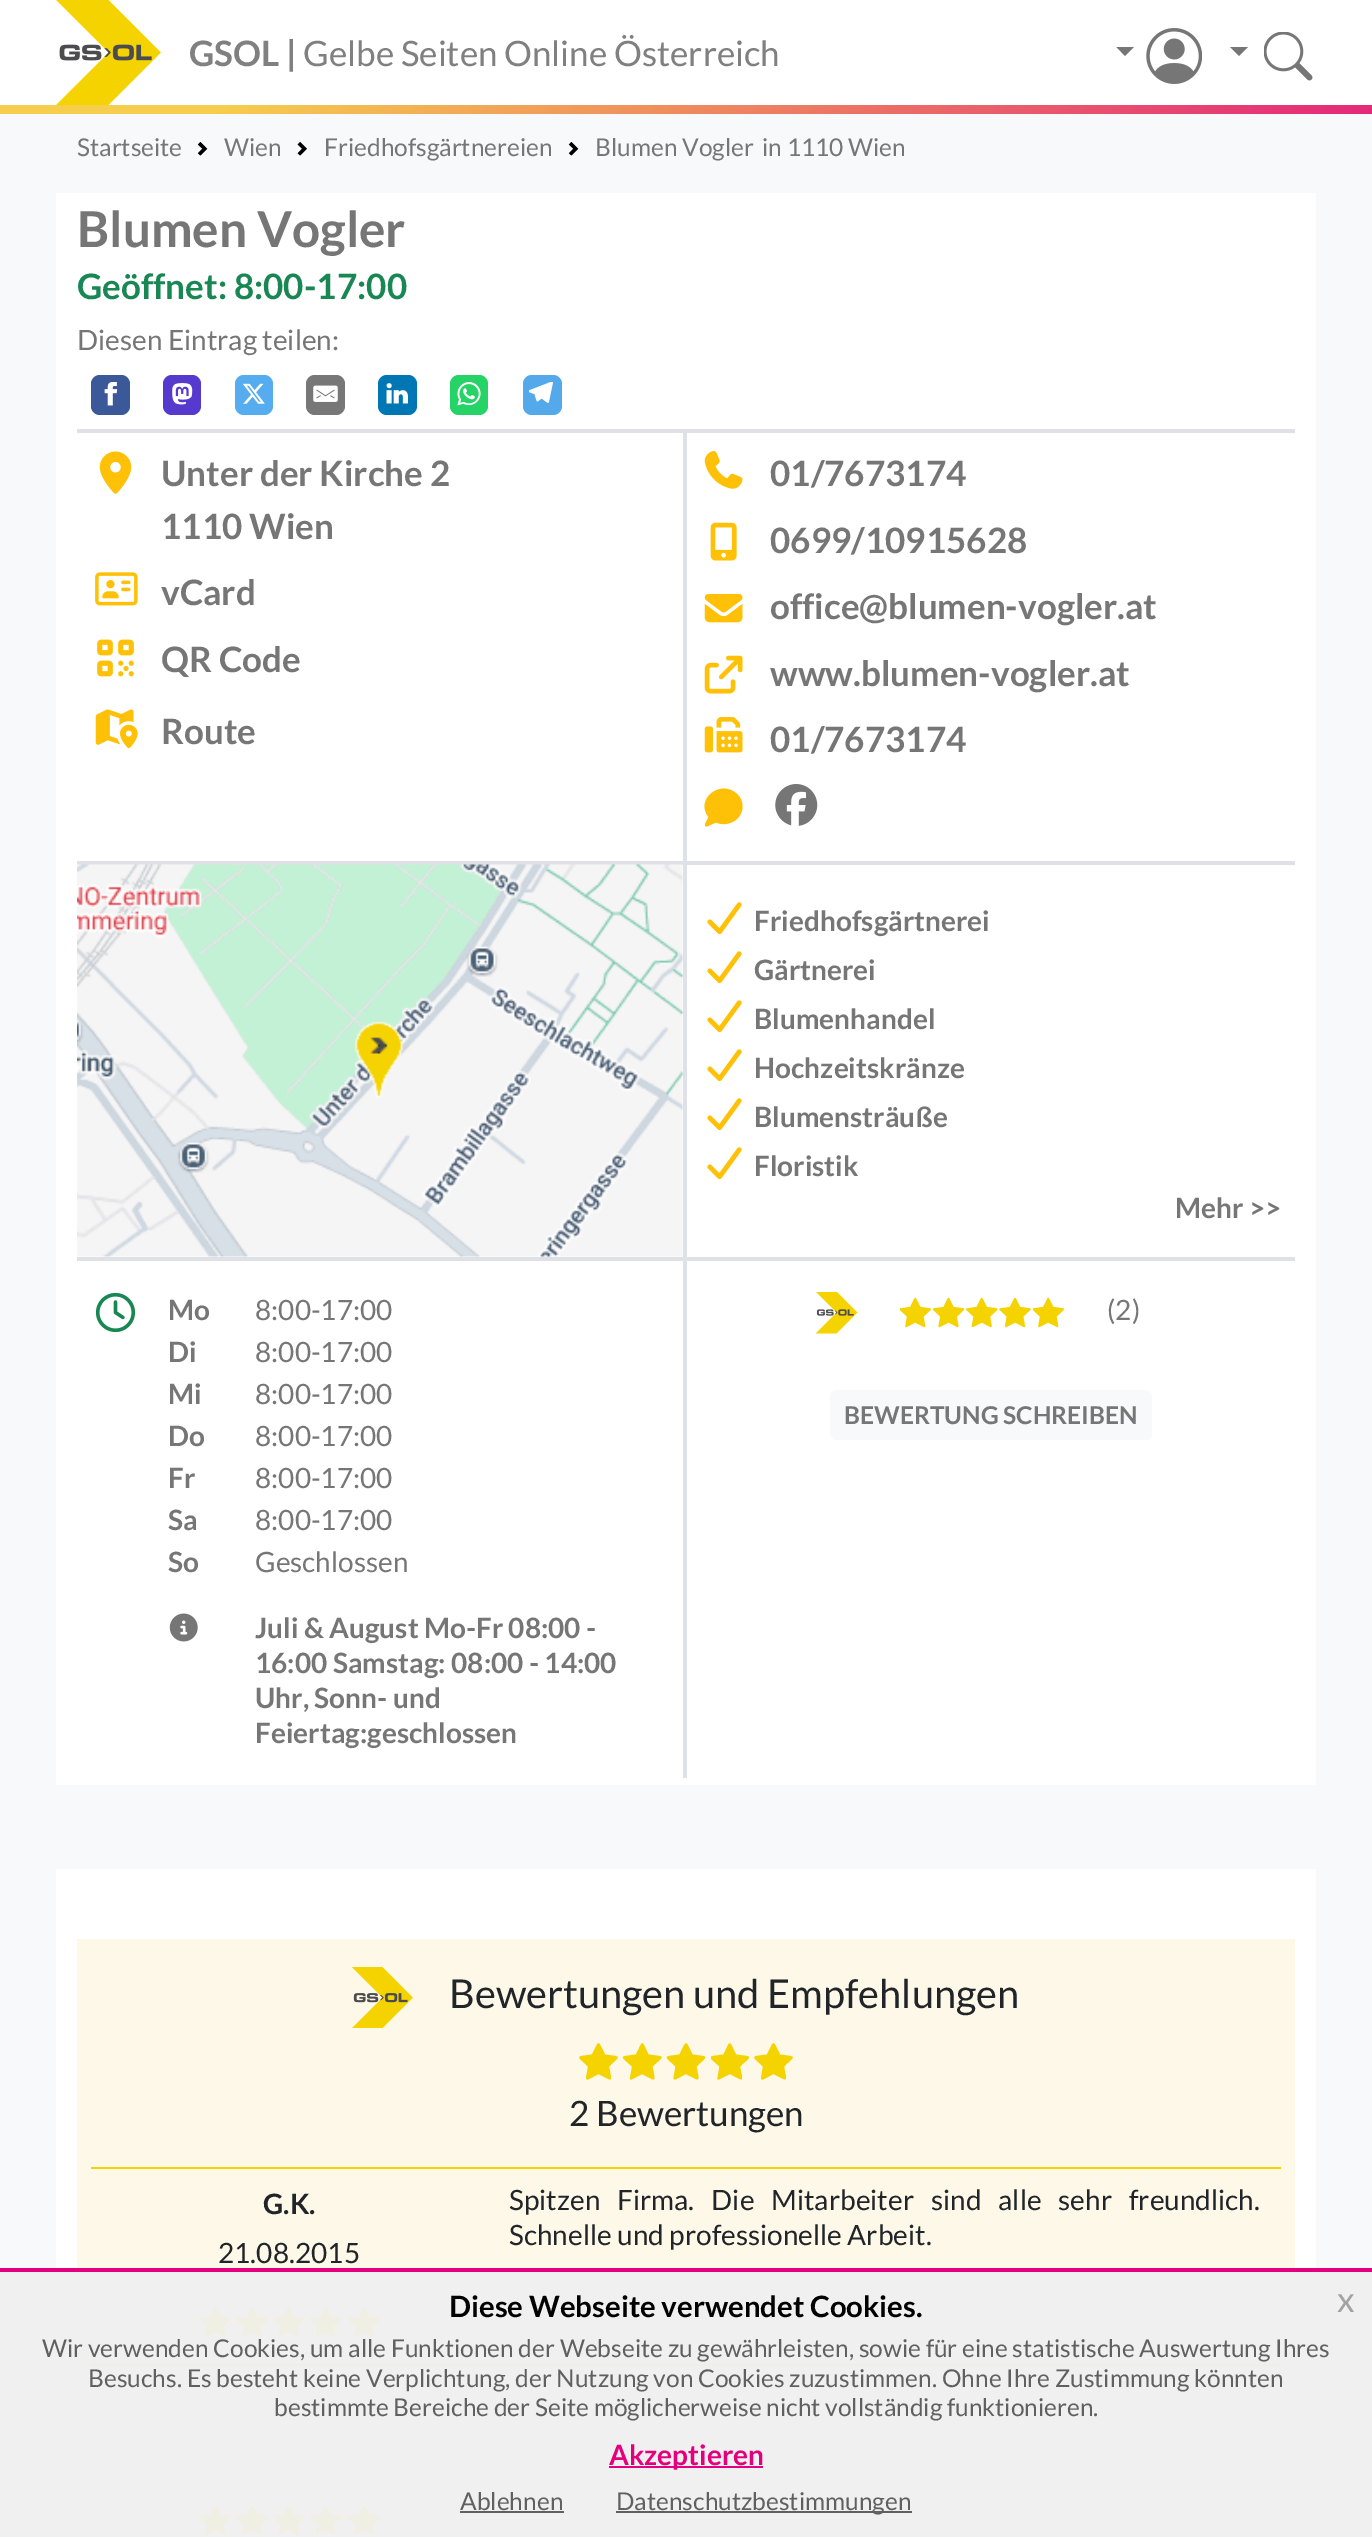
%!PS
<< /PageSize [1372 2537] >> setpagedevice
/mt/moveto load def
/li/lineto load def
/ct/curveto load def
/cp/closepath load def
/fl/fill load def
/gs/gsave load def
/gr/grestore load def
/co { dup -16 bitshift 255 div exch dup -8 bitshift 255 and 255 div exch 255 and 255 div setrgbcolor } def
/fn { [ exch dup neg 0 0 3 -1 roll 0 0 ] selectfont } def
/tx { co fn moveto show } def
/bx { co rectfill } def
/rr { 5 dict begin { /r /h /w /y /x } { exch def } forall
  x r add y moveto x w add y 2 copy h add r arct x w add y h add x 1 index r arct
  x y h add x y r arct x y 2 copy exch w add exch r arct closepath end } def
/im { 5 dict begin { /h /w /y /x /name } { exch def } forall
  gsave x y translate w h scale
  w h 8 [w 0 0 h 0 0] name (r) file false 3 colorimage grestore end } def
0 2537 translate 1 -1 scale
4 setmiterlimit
0 0 1372 2537 16#FFFFFF bx
(media/1.raw) 56 0 105 105 im
16#767676 co
1116.5 47 mt 1134 47 li 1125 56 li cp fl
(media/2.raw) 1146 28 56 56 im
1230 47 mt 1248 47 li 1239 56 li cp fl
(media/3.raw) 1264 32 49 49 im
gs 0 105 mt 1372 105 li 1372 114 li 0 114 li cp clip newpath
<< /ShadingType 2 /ColorSpace /DeviceRGB /Coords [562 -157 835 429] /Extend [true true] /Function << /FunctionType 3 /Domain [0 1] /Functions [<< /FunctionType 2 /Domain [0 1] /C0 [.965 .804 .302] /C1 [.965 .804 .302] /N 1 >> << /FunctionType 2 /Domain [0 1] /C0 [.965 .804 .302] /C1 [.886 .078 .498] /N 1 >>] /Bounds [.15] /Encode [0 1 0 1] >> >> shfill gr
0 114 1372 2154 16#F8F9FA bx
0 2272 1372 265 16#F0F0F1 bx
(media/4.raw) 197 142 11 14 im
(media/5.raw) 297 142 10 14 im
(media/4.raw) 568 142 11 14 im
56 193 1260 1592 16#FFFFFF bx
16#3B5998 co
91 375 39 40 9 rr fl
(media/6.raw) 104 382 14 24 im
16#563ACD co
163 375 38 40 9 rr fl
(media/7.raw) 172 383 21 22 im
16#55ACEE co
235 375 38 40 9 rr fl
(media/8.raw) 242 383 23 21 im
16#777777 co
306 375 39 40 9 rr fl
(media/9.raw) 313 385 25 17 im
16#0077B5 co
378 375 39 40 9 rr fl
(media/10.raw) 386 383 22 21 im
16#25D366 co
450 375 38 40 9 rr fl
(media/11.raw) 457 382 24 24 im
16#54A9EB co
523 375 39 40 9 rr fl
(media/12.raw) 529 382 24 21 im
77 429 609 4 16#DEE2E6 bx
683 429 4 432 16#DEE2E6 bx
(media/13.raw) 99 451 33 43 im
(media/14.raw) 95 572 43 34 im
(media/15.raw) 97 639 37 38 im
(media/16.raw) 95 709 43 40 im
686 429 609 4 16#DEE2E6 bx
(media/17.raw) 704 451 39 38 im
(media/18.raw) 710 522 27 39 im
(media/19.raw) 704 593 39 30 im
(media/20.raw) 704 655 39 39 im
(media/21.raw) 704 717 39 36 im
16#FFC107 co
742.5 806.5 mt 742.5 820 727.5 827.5 716 822.5 ct 710 825 li 709 825.5 706 827.5 705 825.5 ct 705 824 li 708.5 817 li 694.5 799.5 720.5 778.5 737 794 ct 740.5 797 742.5 801.5 742.5 806.5 ct cp fl
(media/22.raw) 775 784 43 42 im
77 861 1218 4 16#DEE2E6 bx
(media/23.raw) 77 864 606 393 im
(media/24.raw) 707 902 35 33 im
(media/24.raw) 707 951 35 33 im
(media/24.raw) 707 1000 35 33 im
(media/24.raw) 707 1049 35 33 im
(media/24.raw) 707 1098 35 33 im
(media/24.raw) 707 1147 35 33 im
77 1257 609 4 16#DEE2E6 bx
683 861 4 917 16#DEE2E6 bx
(media/25.raw) 95 1292 41 41 im
(media/26.raw) 169 1613 29 29 im
686 1257 609 4 16#DEE2E6 bx
(media/27.raw) 816 1292 42 42 im
(media/28.raw) 900 1297 31 31 im
(media/29.raw) 933 1297 31 31 im
(media/30.raw) 966 1297 32 31 im
(media/31.raw) 999 1297 32 31 im
(media/28.raw) 1033 1297 31 31 im
16#F8F9FA co
830 1390 322 50 7 rr fl
56 1869 1260 399 16#FFFFFF bx
77 1939 1218 329 16#FDF8E7 bx
(media/32.raw) 352 1967 61 61 im
16#F5D300 co
588 2079.5 mt 587 2080 586 2079 586 2078 ct 588 2066.5 li 576 2055 575.5 2057 592 2054.5 ct 599.5 2039.5 597.5 2039.5 605 2054.5 ct 621.5 2057 621 2055 609 2066.5 ct 612 2083 613.5 2081.5 598.5 2074 ct cp fl
631.5 2079.5 mt 631 2080 629.5 2079 630 2078 ct 632 2066.5 li 619.5 2055 619 2057 636 2054.5 ct 643.5 2039.5 641 2039.5 648.5 2054.5 ct 665.5 2057 665 2055 652.5 2066.5 ct 655.5 2083 657 2081.5 642 2074 ct cp fl
675.5 2079.5 mt 674.5 2080 673.5 2079 673.5 2078 ct 675.5 2066.5 li 663.5 2055 663 2057 679.5 2054.5 ct 687 2039.5 685 2039.5 692.5 2054.5 ct 709 2057 708.5 2055 696.5 2066.5 ct 699.5 2083 701 2081.5 686 2074 ct cp fl
gs
711 2042 38 39 rectclip
719 2079.5 mt 718.5 2080 717 2079 717.5 2078 ct 719.5 2066.5 li 707 2055 706.5 2057 723.5 2054.5 ct 731 2039.5 728.5 2039.5 736 2054.5 ct 753 2057 752.5 2055 740 2066.5 ct 743 2083 744.5 2081.5 730 2074 ct cp fl
gr
763 2079.5 mt 762 2080 761 2079 761 2078 ct 763 2066.5 li 751 2055 750.5 2057 767 2054.5 ct 774.5 2039.5 772.5 2039.5 780 2054.5 ct 796.5 2057 796 2055 784 2066.5 ct 787 2083 788.5 2081.5 773.5 2074 ct cp fl
(media/33.raw) 200 2307 31 30 im
(media/34.raw) 236 2307 32 30 im
(media/35.raw) 273 2307 32 30 im
(media/36.raw) 310 2307 31 30 im
(media/34.raw) 348 2307 32 30 im
91 2167 1190 2 16#F5D300 bx
91 2364 1190 2 16#F0EFE4 bx
(media/37.raw) 200 2505 31 30 im
(media/38.raw) 236 2505 32 30 im
(media/39.raw) 273 2505 32 30 im
(media/40.raw) 310 2505 31 30 im
(media/38.raw) 348 2505 32 30 im
0 2268 1372 4 16#E4007C bx
609 2466 154 2 16#E4007C bx
460 2511 104 2 16#606060 bx
616 2511 296 2 16#606060 bx
(GSOL |) 189 66 /Lato-Bold 35 16#808080 tx
(Gelbe Seiten Online Österreich) 303 66 /Lato-Regular 35 16#808080 tx
(Startseite) 77 156 /Lato-Regular 24.5 16#767676 tx
(Wien) 224 156 /Lato-Regular 24.5 16#767676 tx
(Friedhofsgärtnereien) 324 156 /Lato-Regular 24.5 16#767676 tx
(Blumen Vogler) 595 156 /Lato-Regular 24.5 16#767676 tx
(in 1110 Wien) 762 156 /Lato-Regular 24.5 16#767676 tx
(Blumen Vogler) 77 247 /Lato-Bold 49.5 16#767676 tx
(Geöffnet: 8:00-17:00) 77 299 /Lato-Bold 35 16#198754 tx
(Diesen Eintrag teilen:) 77 350 /Lato-Regular 28 16#767676 tx
(Unter der Kirche 2) 161 486 /Lato-Bold 35 16#767676 tx
(1110 Wien) 161 539 /Lato-Bold 35 16#767676 tx
(vCard) 161 605 /Lato-Bold 35 16#767676 tx
(QR Code) 161 672 /Lato-Bold 35 16#767676 tx
(Route) 161 744 /Lato-Bold 35 16#767676 tx
(01/7673174) 770 486 /Lato-Bold 35 16#767676 tx
(0699/10915628) 770 553 /Lato-Bold 35 16#767676 tx
(office@blumen-vogler.at) 770 619 /Lato-Bold 35 16#767676 tx
(www.blumen-vogler.at) 770 686 /Lato-Bold 35 16#767676 tx
(01/7673174) 770 752 /Lato-Bold 35 16#767676 tx
(Friedhofsgärtnerei) 754 931 /Lato-Bold 28 16#767676 tx
(Gärtnerei) 754 980 /Lato-Bold 28 16#767676 tx
(Blumenhandel) 754 1029 /Lato-Bold 28 16#767676 tx
(Hochzeitskränze) 754 1078 /Lato-Bold 28 16#767676 tx
(Blumensträuße) 754 1127 /Lato-Bold 28 16#767676 tx
(Floristik) 754 1176 /Lato-Bold 28 16#767676 tx
(Mehr >>) 1175 1218 /Lato-Bold 28 16#767676 tx
(Mo) 168 1320 /Lato-Bold 28 16#767676 tx
(8:00-17:00) 255 1320 /Lato-Regular 28 16#767676 tx
(Di) 168 1362 /Lato-Bold 28 16#767676 tx
(8:00-17:00) 255 1362 /Lato-Regular 28 16#767676 tx
(Mi) 168 1404 /Lato-Bold 28 16#767676 tx
(8:00-17:00) 255 1404 /Lato-Regular 28 16#767676 tx
(Do) 168 1446 /Lato-Bold 28 16#767676 tx
(8:00-17:00) 255 1446 /Lato-Regular 28 16#767676 tx
(Fr) 168 1488 /Lato-Bold 28 16#767676 tx
(8:00-17:00) 255 1488 /Lato-Regular 28 16#767676 tx
(Sa) 168 1530 /Lato-Bold 28 16#767676 tx
(8:00-17:00) 255 1530 /Lato-Regular 28 16#767676 tx
(So) 168 1572 /Lato-Bold 28 16#767676 tx
(Geschlossen) 255 1572 /Lato-Regular 28 16#767676 tx
(Juli & August Mo-Fr 08:00 -) 255 1638 /Lato-Bold 28 16#767676 tx
(16:00 Samstag: 08:00 - 14:00) 255 1673 /Lato-Bold 28 16#767676 tx
(Uhr, Sonn- und) 255 1708 /Lato-Bold 28 16#767676 tx
(Feiertag:geschlossen) 255 1743 /Lato-Bold 28 16#767676 tx
(\(2\)) 1107 1320 /Lato-Regular 28 16#767676 tx
(BEWERTUNG SCHREIBEN) 844 1424 /Lato-Bold 24.5 16#767676 tx
(Bewertungen und Empfehlungen) 449 2008 /Lato-Regular 39.8 16#212529 tx
(2 Bewertungen) 569 2126 /Lato-Regular 35 16#212529 tx
(G.K.) 263 2214 /Lato-Bold 28 16#212529 tx
(21.08.2015) 218 2263 /Lato-Regular 28 16#212529 tx
509 2210 mt 11.5 0 32 (Spitzen Firma. Die Mitarbeiter sind alle sehr freundlich.) widthshow
(Schnelle und professionelle Arbeit.) 509 2245 /Lato-Regular 28 16#212529 tx
(Diese Webseite verwendet Cookies.) 449 2317 /Lato-Bold 29.4 16#000000 tx
(x) 1337 2312 /Lato-Regular 35 16#A2A2A2 tx
(Wir verwenden Cookies, um alle Funktionen der Webseite zu gewährleisten, sowie für eine statistische Auswertung Ihres) 42 2357 /Lato-Regular 24.5 16#606060 tx
(Besuchs. Es besteht keine Verplichtung, der Nutzung von Cookies zuzustimmen. Ohne Ihre Zustimmung könnten) 88 2387 /Lato-Regular 24.5 16#606060 tx
(bestimmte Bereiche der Seite möglicherweise nicht vollständig funktionieren.) 274 2416 /Lato-Regular 24.5 16#606060 tx
(Akzeptieren) 609 2465 /Lato-Bold 28 16#E4007C tx
(Ablehnen) 460 2510 /Lato-Regular 24.5 16#606060 tx
(Datenschutzbestimmungen) 616 2510 /Lato-Regular 24.5 16#606060 tx
showpage
